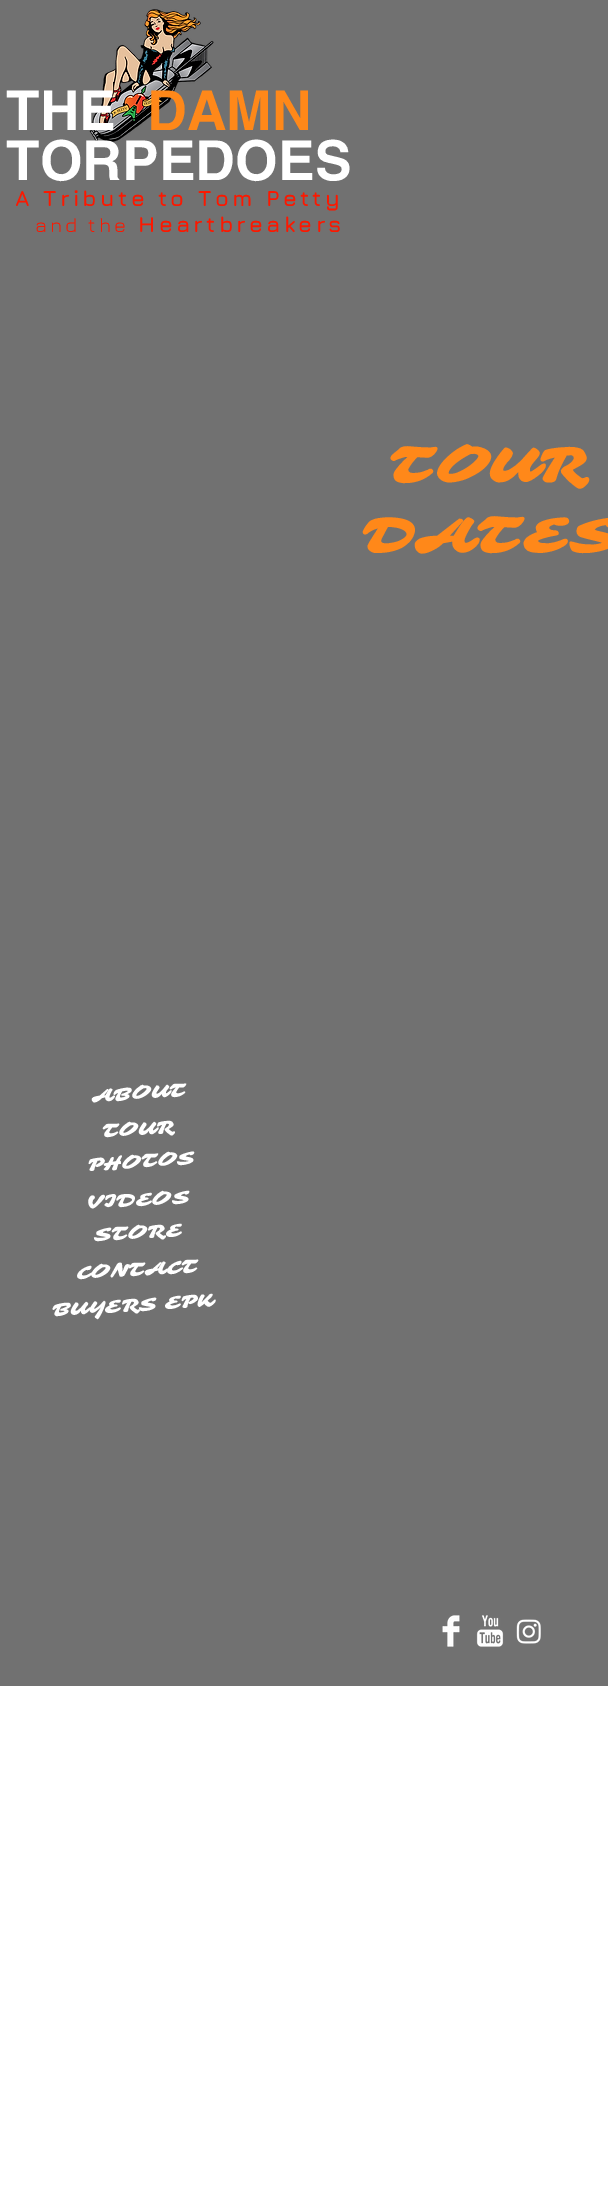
%!PS
<< /PageSize [608 2196] >> setpagedevice
/mt/moveto load def
/gs/gsave load def
/gr/grestore load def
/co { dup -16 bitshift 255 div exch dup -8 bitshift 255 and 255 div exch 255 and 255 div setrgbcolor } def
/fn { [ exch dup neg 0 0 3 -1 roll 0 0 ] selectfont } def
/tx { co fn moveto show } def
/bx { co rectfill } def
/im { 5 dict begin { /h /w /y /x /name } { exch def } forall
  gsave x y translate w h scale
  w h 8 [w 0 0 h 0 0] name (r) file false 3 colorimage grestore end } def
0 2196 translate 1 -1 scale
4 setmiterlimit
0 0 608 2196 16#FFFFFF bx
0 0 608 1686 16#717171 bx
(media/1.raw) 89 9 125 133 im
(media/2.raw) 442 1615 18 32 im
(media/3.raw) 476 1615 28 32 im
(media/4.raw) 516 1619 25 25 im
(THE) 6 130 /helvetica-Bold 55 16#FFFFFF tx
(DAMN) 147 130 /helvetica-Bold 55 16#FF8819 tx
(TORPEDOES) 6 180 /helvetica-Bold 55 16#FFFFFF tx
/Jura-Bold 22 fn
16#FC1800 co
15 206 mt 3.3 0 (A Tribute to Tom Petty) ashow
/Jura-Regular 20 fn
35 232 mt 3 0 (and the) ashow
/Jura-Bold 22 fn
138 232 mt 3.3 0 (Heartbreakers) ashow
(TOUR) 390 482 /Sarina-Bold 50 16#FF8819 tx
(DATES) 361 552 /Sarina-Bold 50 16#FF8819 tx
/Sarina-Bold 18 fn
16#FFFFFF co
gs 92 1102 translate -3.6 rotate 0 0 mt (ABOUT) show gr
gs 103 1137 translate -3.3 rotate 0 0 mt (TOUR) show gr
gs 88 1171 translate -3.8 rotate 0 0 mt (PHOTOS) show gr
gs 88 1208 translate -3 rotate 0 0 mt (VIDEOS) show gr
gs 94 1241 translate -3.3 rotate 0 0 mt (STORE) show gr
gs 77 1279 translate -3.3 rotate 0 0 mt (CONTACT) show gr
gs 53 1316 translate -3.4 rotate 0 0 mt (BUYERS EPK) show gr
showpage
